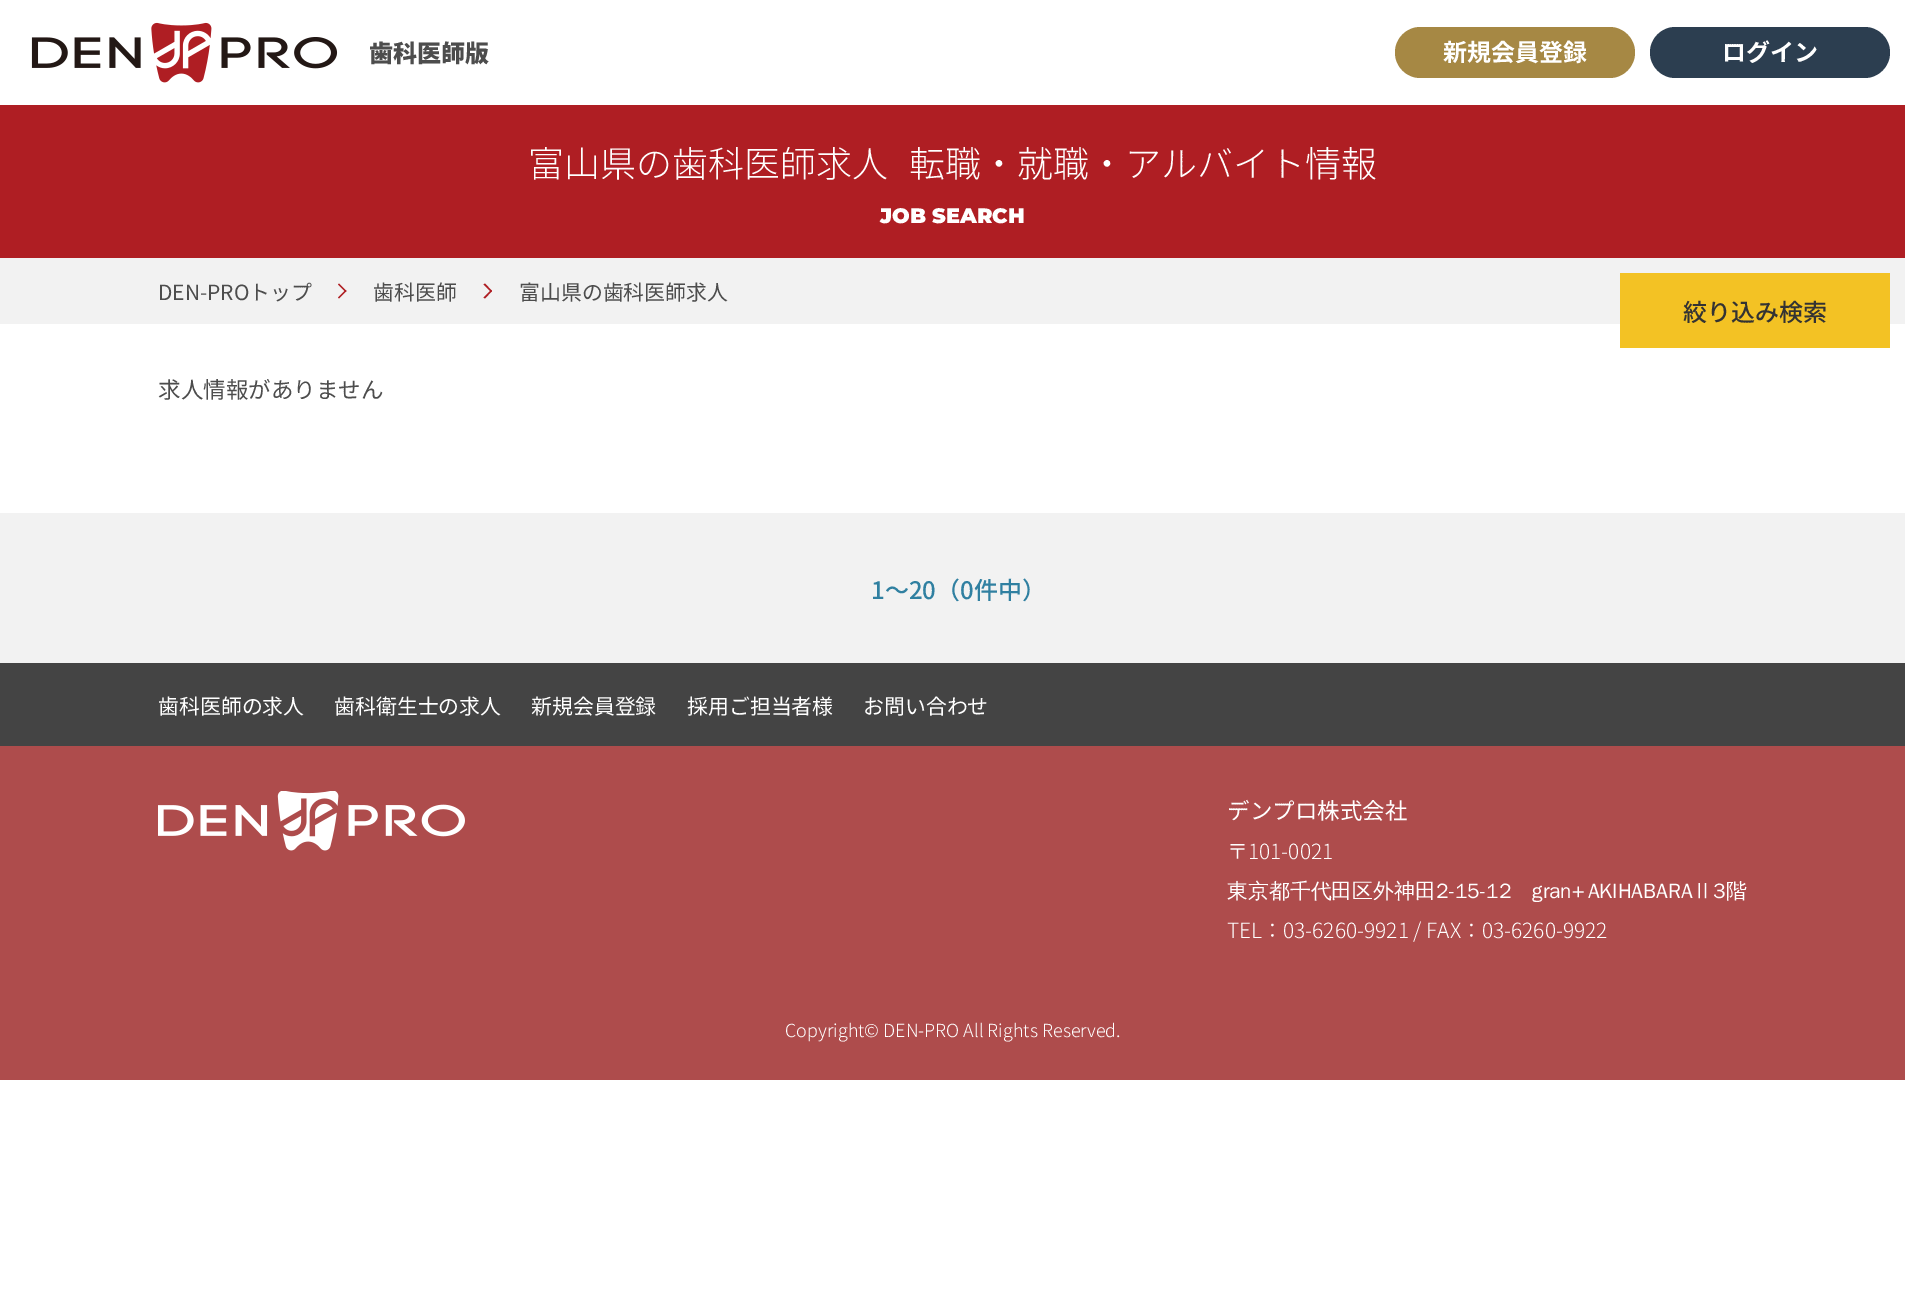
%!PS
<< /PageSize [1905 1316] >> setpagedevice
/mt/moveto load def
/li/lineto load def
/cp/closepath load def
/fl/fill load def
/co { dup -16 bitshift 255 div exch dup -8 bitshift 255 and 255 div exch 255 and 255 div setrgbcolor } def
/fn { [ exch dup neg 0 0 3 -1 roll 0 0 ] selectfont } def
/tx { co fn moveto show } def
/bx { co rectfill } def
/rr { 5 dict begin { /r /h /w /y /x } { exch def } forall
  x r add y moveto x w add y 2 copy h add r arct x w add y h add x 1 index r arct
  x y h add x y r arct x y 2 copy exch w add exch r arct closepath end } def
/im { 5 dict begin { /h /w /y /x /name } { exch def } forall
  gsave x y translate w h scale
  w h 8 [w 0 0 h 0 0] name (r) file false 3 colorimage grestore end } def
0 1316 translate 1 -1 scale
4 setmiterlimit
0 0 1905 1316 16#FFFFFF bx
(media/1.raw) 31 22 307 61 im
0 105 1905 153 16#AF1E23 bx
16#A68844 co
1395 27 240 51 25.5 rr fl
16#2C3E50 co
1650 27 240 51 25.5 rr fl
0 258 1905 66 16#F2F2F2 bx
16#AF1E23 co
339 283.5 mt 346.5 291 li 345.5 292 li 338 284.5 li cp fl
345.5 290 mt 346.5 291 li 339 298.5 li 338 297.5 li cp fl
485 283.5 mt 492 291 li 491 292 li 483.5 284.5 li cp fl
491 290 mt 492 291 li 485 298.5 li 483.5 297.5 li cp fl
1620 273 270 75 16#F3C224 bx
0 513 1905 150 16#F2F2F2 bx
0 746 1905 334 16#AE4C4C bx
0 663 1905 83 16#444444 bx
(media/2.raw) 158 791 307 60 im
(歯科医師版) 369 62 /NotoSansJP-Black 24 16#4D4D4D tx
(富山県の歯科医師求人) 528 177 /NotoSansJP-Light 36 16#FFFFFF tx
(転職・就職・アルバイト情報) 909 177 /NotoSansJP-Light 36 16#FFFFFF tx
(JOB SEARCH) 880 223 /Montserrat-Black 20.9 16#FFFFFF tx
(新規会員登録) 1443 61 /NotoSansJP-Bold 24 16#FFFFFF tx
(ログイン) 1722 61 /NotoSansJP-Bold 24 16#FFFFFF tx
(DEN-PROトップ) 158 300 /NotoSansJP-Regular 20.9 16#4D4D4D tx
(歯科医師) 373 300 /NotoSansJP-Regular 20.9 16#4D4D4D tx
(富山県の歯科医師求人) 519 300 /NotoSansJP-Regular 20.9 16#4D4D4D tx
(絞り込み検索) 1683 321 /NotoSansJP-Medium 24 16#333333 tx
(求人情報がありません) 158 398 /NotoSansJP-Regular 22.5 16#4D4D4D tx
(1～20（0件中）) 871 599 /NotoSansJP-Medium 24 16#3080A1 tx
(歯科医師の求人) 158 714 /NotoSansJP-Regular 20.9 16#FFFFFF tx
(歯科衛生士の求人) 334 714 /NotoSansJP-Regular 20.9 16#FFFFFF tx
(新規会員登録) 531 714 /NotoSansJP-Regular 20.9 16#FFFFFF tx
(採用ご担当者様) 687 714 /NotoSansJP-Regular 20.9 16#FFFFFF tx
(お問い合わせ) 863 714 /NotoSansJP-Regular 20.9 16#FFFFFF tx
(デンプロ株式会社) 1227 819 /NotoSansJP-Regular 22.5 16#FFFFFF tx
(〒101-0021) 1227 859 /NotoSansJP-Light 20.9 16#FFFFFF tx
/WenQuanYiZenHei-Medium 20.9 fn
1227 898 mt -3 0 32 (東京都千代田区外神田2-15-12　gran+ AKIHABARAⅡ3階) widthshow
(TEL：03-6260-9921 / FAX：03-6260-9922) 1227 938 /NotoSansJP-Light 20.9 16#FFFFFF tx
(Copyright© DEN-PRO All Rights Reserved.) 785 1037 /NotoSansJP-Light 18 16#FFFFFF tx
showpage
